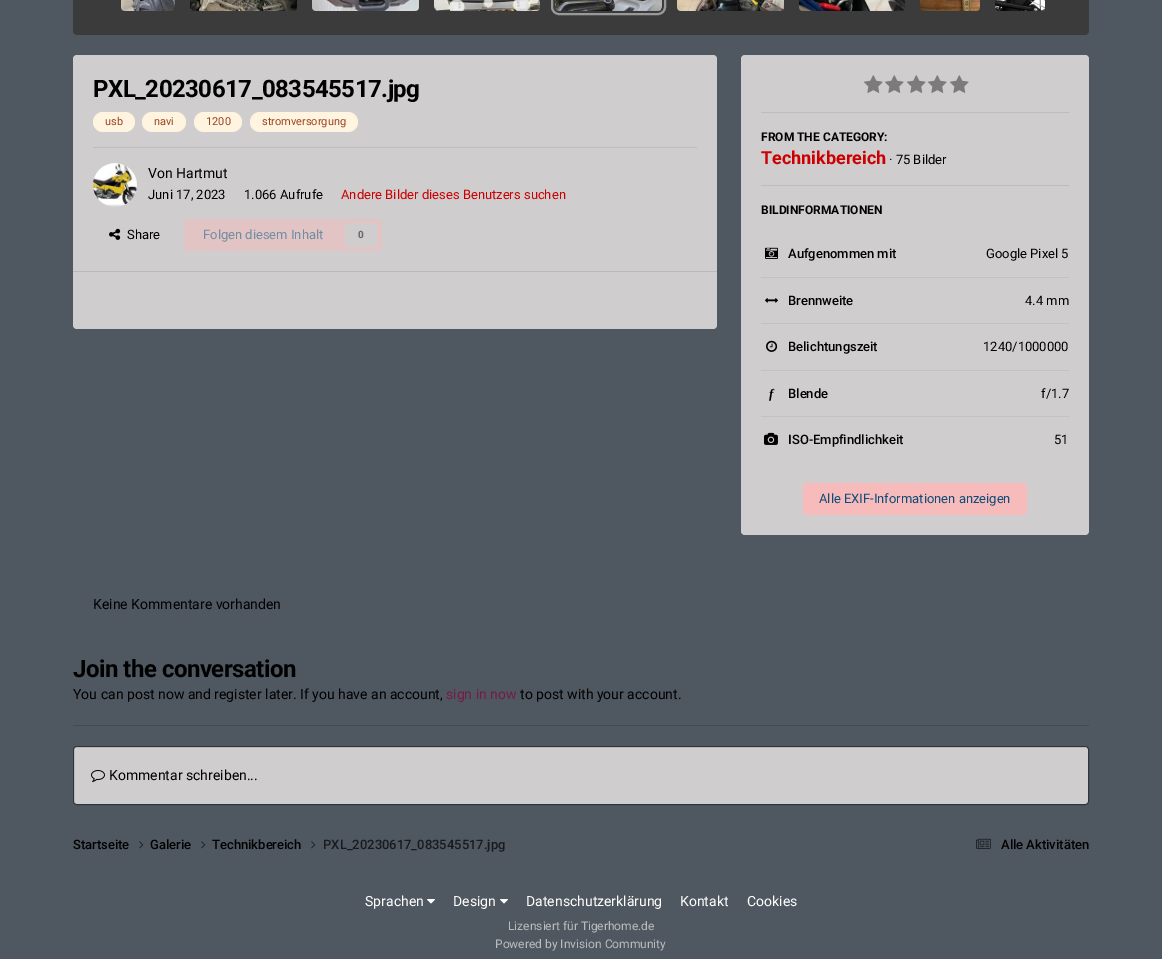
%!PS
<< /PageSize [1162 959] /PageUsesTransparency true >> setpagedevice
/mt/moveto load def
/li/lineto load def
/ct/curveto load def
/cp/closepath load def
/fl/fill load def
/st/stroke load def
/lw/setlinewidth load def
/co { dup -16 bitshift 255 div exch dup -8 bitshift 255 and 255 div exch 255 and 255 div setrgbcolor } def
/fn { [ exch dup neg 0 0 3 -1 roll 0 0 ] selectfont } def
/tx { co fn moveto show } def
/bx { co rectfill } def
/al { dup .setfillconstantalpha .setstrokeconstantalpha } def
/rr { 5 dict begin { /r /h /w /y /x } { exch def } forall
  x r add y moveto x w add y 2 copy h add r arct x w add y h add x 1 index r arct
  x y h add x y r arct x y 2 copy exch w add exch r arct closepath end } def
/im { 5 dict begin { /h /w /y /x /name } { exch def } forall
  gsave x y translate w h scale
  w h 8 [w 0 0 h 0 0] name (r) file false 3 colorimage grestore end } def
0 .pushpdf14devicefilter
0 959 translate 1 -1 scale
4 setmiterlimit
0 0 1162 959 16#4F5860 bx
16#555555 co
73 -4 mt 1089 -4 li 1089 31 li 1089 33 1087 35 1085 35 ct 77 35 li 75 35 73 33 73 31 ct cp fl
0.3 al
16#000000 co
73 -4 mt 1089 -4 li 1089 31 li 1089 33 1087 35 1085 35 ct 77 35 li 75 35 73 33 73 31 ct cp fl
1 al
(media/1.raw) 121 0 54 11 im
(media/2.raw) 190 0 107 11 im
(media/3.raw) 312 0 107 11 im
(media/4.raw) 434 0 106 11 im
16#999999 co
2 lw
552 -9 113 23 7 rr st
(media/5.raw) 555 0 107 11 im
(media/6.raw) 677 0 107 11 im
(media/7.raw) 799 0 106 11 im
(media/8.raw) 920 0 60 11 im
(media/9.raw) 995 0 50 11 im
16#CFCDCD co
73 55 644 274 4 rr fl
16#FFF4DF co
93 112 42 20 10 rr fl
142 112 44 20 10 rr fl
194 112 48 20 10 rr fl
250 112 108 20 10 rr fl
93 147 604 1 16#BEBDBD bx
(media/10.raw) 93 163 44 44 im
(media/11.raw) 109 228 12 12 im
16#E3C4C4 co
184 219 198 32 4 rr fl
16#CFCDCD co
345 223 32 24 4 rr fl
73 271 644 1 16#BAB9B9 bx
16#CFCDCD co
741 55 348 480 4 rr fl
(media/12.raw) 864 75 19 18 im
(media/12.raw) 885 75 19 18 im
(media/12.raw) 907 75 19 18 im
(media/12.raw) 928 75 19 18 im
(media/12.raw) 950 75 19 18 im
761 112 308 1 16#BEBDBD bx
761 185 308 1 16#BEBDBD bx
761 277 308 1 16#C3C1C1 bx
(media/13.raw) 765 247 13 12 im
761 323 308 1 16#C3C1C1 bx
(media/14.raw) 765 298 13 5 im
761 370 308 1 16#C3C1C1 bx
(media/15.raw) 766 340 12 12 im
761 416 308 1 16#C3C1C1 bx
(media/16.raw) 764 432 14 13 im
16#F7BBBB co
803 483 224 32 4 rr fl
73 725 1016 1 16#434B52 bx
16#CFCDCD co
74 747 1014 57 3 rr fl
0.4 al
16#000000 co
1 lw
73.5 746.5 1015 58 3.5 rr st
1 al
(media/17.raw) 91 770 14 12 im
(media/18.raw) 139 841 5 8 im
(media/18.raw) 201 841 5 8 im
(media/18.raw) 311 841 5 8 im
(media/19.raw) 976 838 15 11 im
(media/20.raw) 427 899 8 5 im
(media/20.raw) 500 899 8 5 im
/Roboto-Bold 24 fn
93 97 mt -.5 0 (PXL_20230617_083545517.jpg) ashow
(usb) 105 125 /Roboto-Regular 11 16#9C4221 tx
(navi) 154 125 /Roboto-Regular 11 16#9C4221 tx
(1200) 206 125 /Roboto-Regular 11 16#9C4221 tx
(stromversorgung) 262 125 /Roboto-Regular 11 16#9C4221 tx
(Von Hartmut) 148 178 /Roboto-Regular 14 16#000000 tx
(Juni 17, 2023) 148 199 /Roboto-Regular 13 16#000000 tx
(1.066 Aufrufe) 244 199 /Roboto-Regular 13 16#000000 tx
(Andere Bilder dieses Benutzers suchen) 341 199 /Roboto-Regular 13 16#CC0000 tx
(Share) 127 239 /Roboto-Regular 13 16#000000 tx
(Folgen diesem Inhalt) 203 239 /Roboto-Regular 13 16#6F8DA3 tx
(0) 358 238 /Roboto-Bold 10 16#686767 tx
(FROM THE CATEGORY:) 761 141 /Roboto-Bold 12 16#000000 tx
(Technikbereich) 761 164 /Roboto-Bold 18 16#CC0000 tx
(· 75 Bilder) 889 164 /Roboto-Regular 13 16#000000 tx
(BILDINFORMATIONEN) 761 214 /Roboto-Bold 12 16#000000 tx
(Aufgenommen mit) 788 258 /Roboto-Medium 13 16#000000 tx
(Google Pixel 5) 986 258 /Roboto-Regular 13 16#000000 tx
(Brennweite) 788 305 /Roboto-Medium 13 16#000000 tx
(4.4 mm) 1025 305 /Roboto-Regular 13 16#000000 tx
(Belichtungszeit) 788 351 /Roboto-Medium 13 16#000000 tx
(1240/1000000) 983 351 /Roboto-Regular 13 16#000000 tx
(f) 769 398 /LiberationSerif-BoldItalic 13 16#000000 tx
(Blende) 788 398 /Roboto-Medium 13 16#000000 tx
(f/1.7) 1041 398 /Roboto-Regular 13 16#000000 tx
(ISO-Empfindlichkeit) 788 444 /Roboto-Medium 13 16#000000 tx
(51) 1054 444 /Roboto-Regular 13 16#000000 tx
(Alle EXIF-Informationen anzeigen) 819 503 /Roboto-Regular 13 16#0E4C79 tx
(Keine Kommentare vorhanden) 93 609 /Roboto-Regular 14 16#000000 tx
/Roboto-Bold 24 fn
73 677 mt -.5 0 (Join the conversation) ashow
(You can post now and register later. If you have an account,) 73 699 /Roboto-Regular 14 16#000000 tx
(sign in now) 446 699 /Roboto-Regular 14 16#741B47 tx
(to post with your account.) 520 699 /Roboto-Regular 14 16#000000 tx
(Kommentar schreiben...) 109 780 /Roboto-Regular 14 16#000000 tx
(Startseite) 73 849 /Roboto-Medium 13 16#000000 tx
(Galerie) 150 849 /Roboto-Medium 13 16#000000 tx
(Technikbereich) 212 849 /Roboto-Medium 13 16#000000 tx
(PXL_20230617_083545517.jpg) 323 849 /Roboto-Medium 13 16#181A1D tx
(Alle Aktivitäten) 1001 849 /Roboto-Medium 13 16#000000 tx
(Sprachen) 365 906 /Roboto-Regular 14 16#FFFFFF tx
(Design) 453 906 /Roboto-Regular 14 16#FFFFFF tx
(Datenschutzerklärung) 526 906 /Roboto-Regular 14 16#FFFFFF tx
(Kontakt) 680 906 /Roboto-Regular 14 16#FFFFFF tx
(Cookies) 747 906 /Roboto-Regular 14 16#FFFFFF tx
(Lizensiert für Tigerhome.de) 508 930 /Roboto-Regular 12 16#B9BCBF tx
(Powered by Invision Community) 495 948 /Roboto-Regular 12 16#B9BCBF tx
.poppdf14devicefilter showpage
